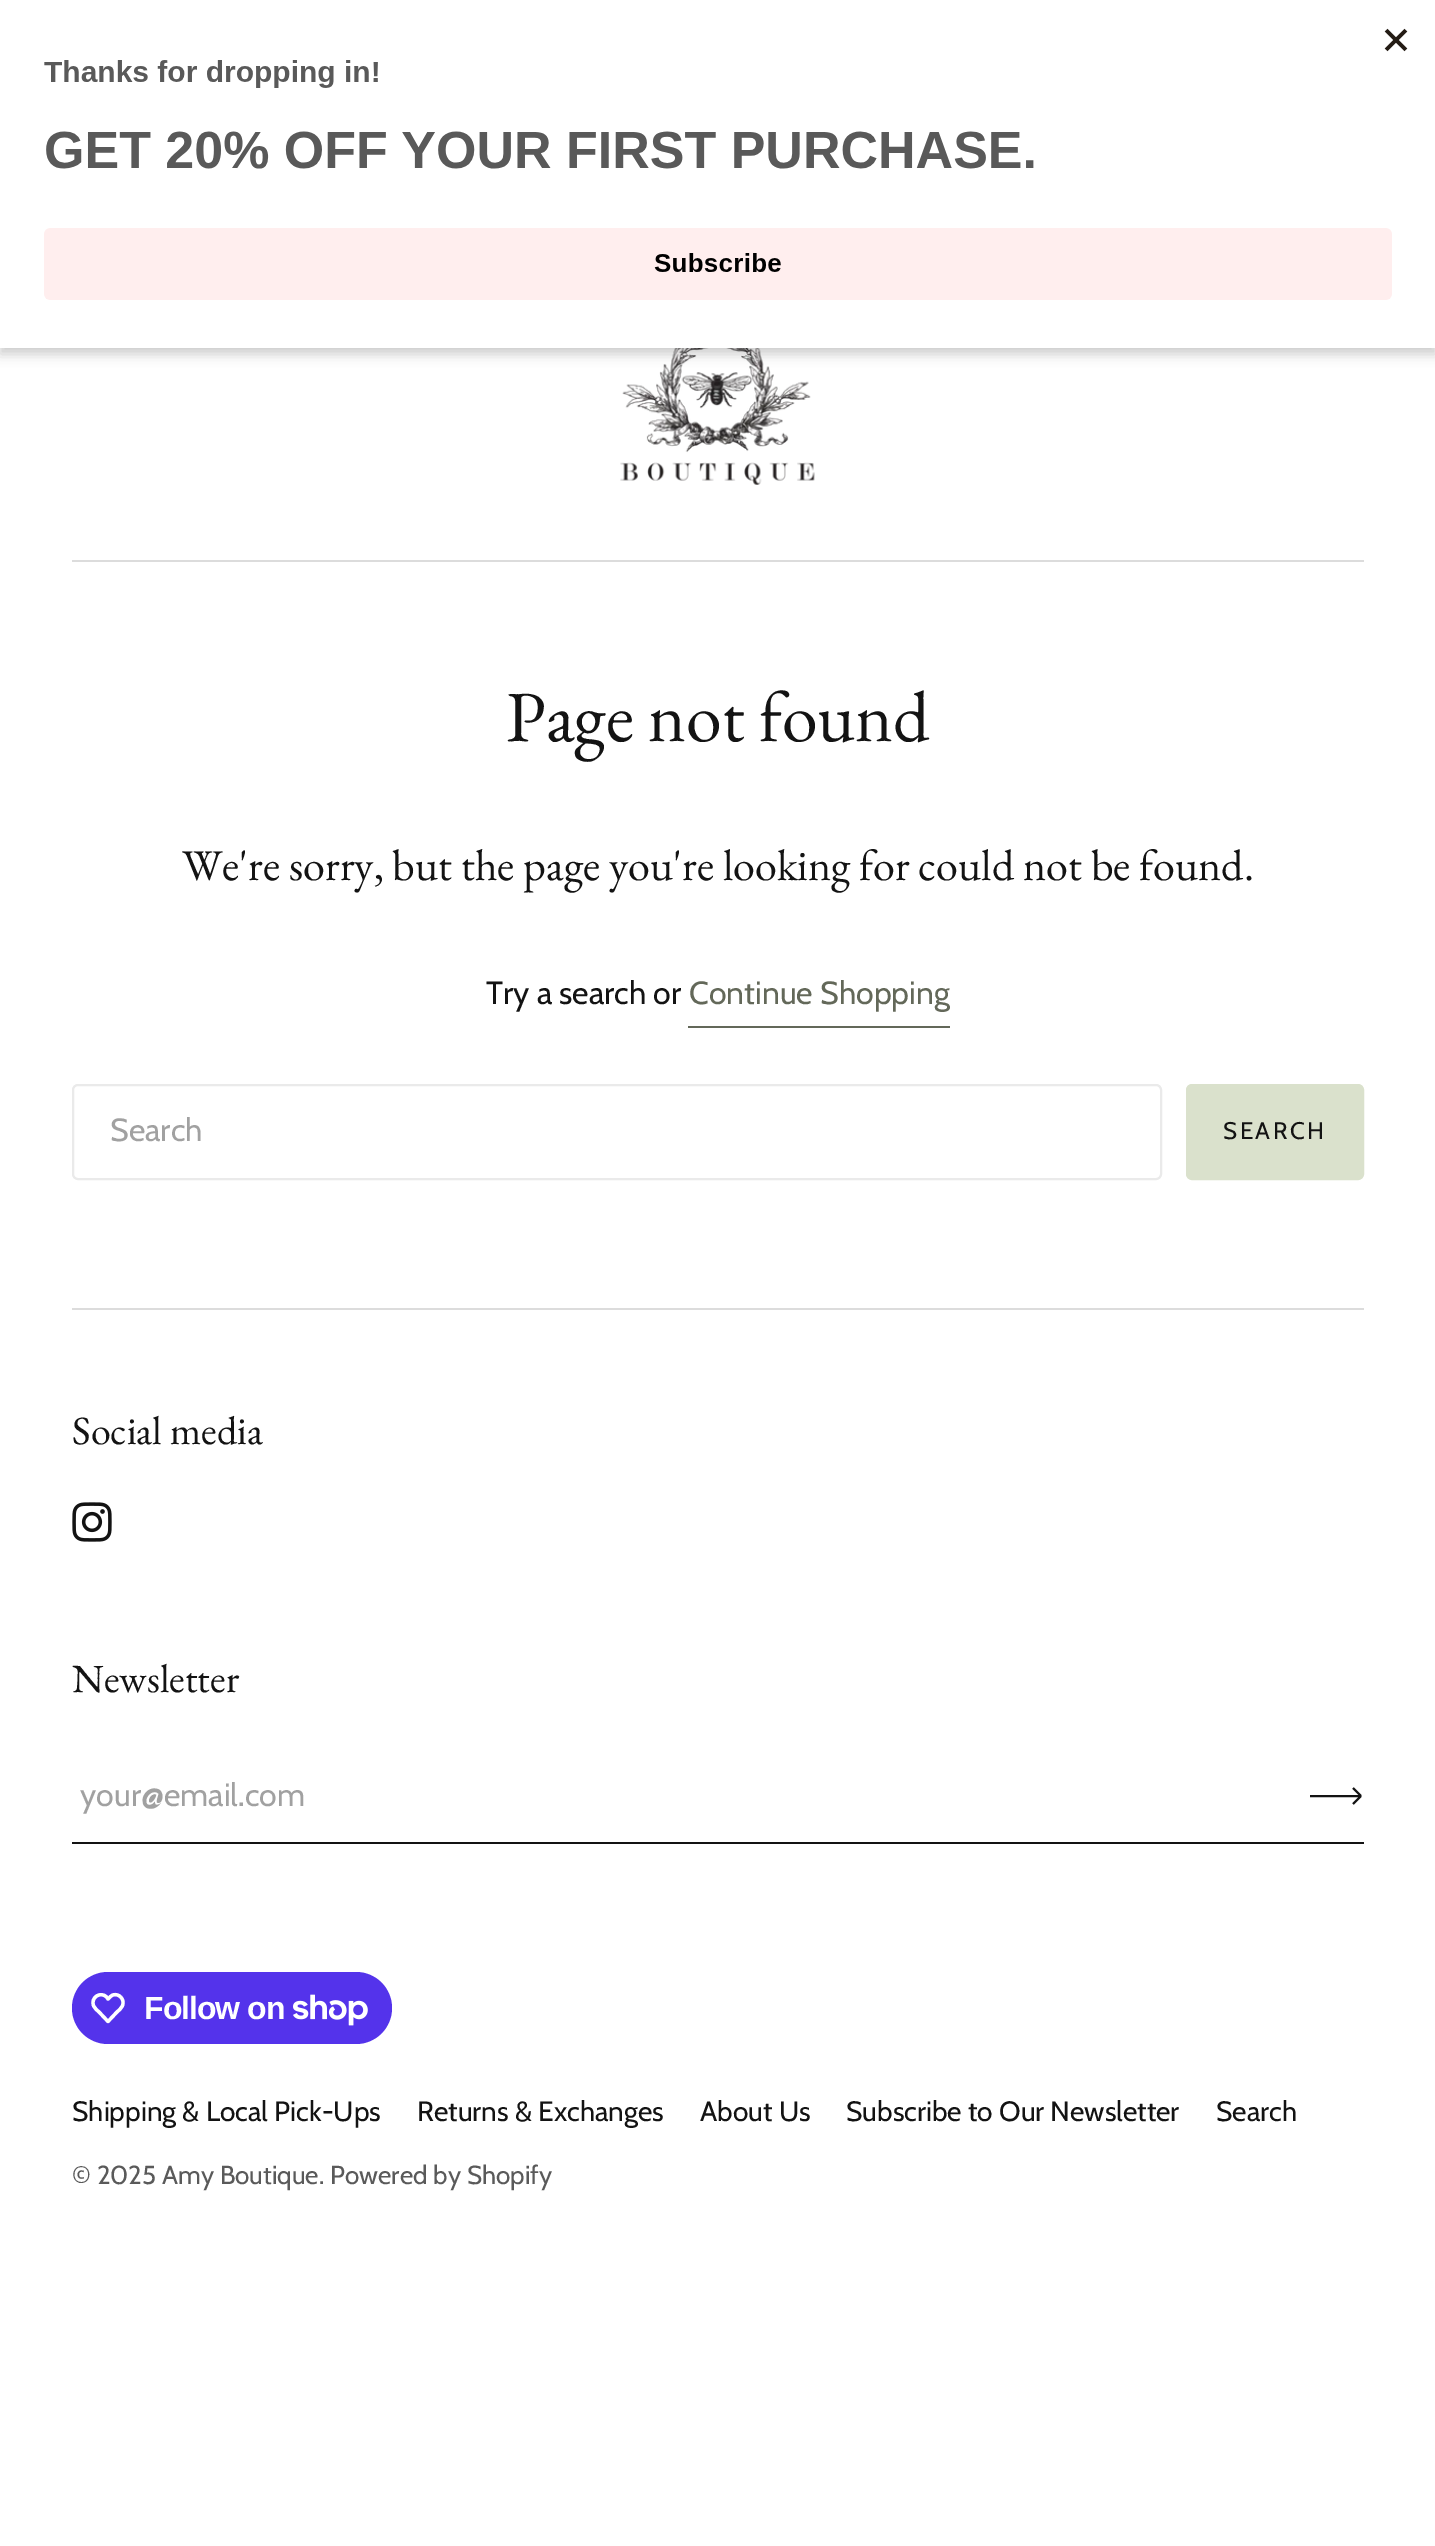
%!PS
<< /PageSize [1435 2546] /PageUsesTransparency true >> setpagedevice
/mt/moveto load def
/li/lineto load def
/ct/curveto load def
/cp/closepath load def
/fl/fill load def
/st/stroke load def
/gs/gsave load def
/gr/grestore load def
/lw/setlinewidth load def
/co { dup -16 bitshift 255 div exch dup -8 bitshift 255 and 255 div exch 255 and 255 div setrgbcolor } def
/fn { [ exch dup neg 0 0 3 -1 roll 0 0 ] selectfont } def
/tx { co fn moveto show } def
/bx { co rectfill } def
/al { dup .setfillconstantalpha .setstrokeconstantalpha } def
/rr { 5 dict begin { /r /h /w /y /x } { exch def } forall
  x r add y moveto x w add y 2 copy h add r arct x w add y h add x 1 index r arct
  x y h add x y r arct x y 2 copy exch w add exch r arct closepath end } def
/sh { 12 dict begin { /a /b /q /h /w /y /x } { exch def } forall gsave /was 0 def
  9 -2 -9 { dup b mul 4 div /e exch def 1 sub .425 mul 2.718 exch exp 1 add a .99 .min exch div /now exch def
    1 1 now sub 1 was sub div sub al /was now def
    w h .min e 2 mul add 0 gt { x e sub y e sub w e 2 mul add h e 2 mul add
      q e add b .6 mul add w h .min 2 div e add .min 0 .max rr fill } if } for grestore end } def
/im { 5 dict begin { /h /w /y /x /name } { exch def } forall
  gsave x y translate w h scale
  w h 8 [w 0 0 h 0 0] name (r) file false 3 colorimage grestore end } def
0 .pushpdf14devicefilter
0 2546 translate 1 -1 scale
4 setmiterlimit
0 0 1435 2546 16#FFFFFF bx
(media/2.raw) 620 348 195 137 im
16#000000 co
0 6 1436 348 0 6 .2 sh
0 0 1435 348 16#FFFFFF bx
(media/1.raw) 44 28 1364 272 im
72 560 1292 2 16#DCDCDC bx
688 1026 262 2 16#636859 bx
16#EAEAEA co
2 lw
73 1085 1088 94 5 rr st
16#DAE1CC co
1187 1085 176 94 5 rr gs fl gr
st
72 1308 1292 2 16#DCDCDC bx
(media/3.raw) 72 1502 40 40 im
72 1842 1292 2 16#131313 bx
1310 1796 mt 1361 1796 li 1361 1796 mt 1353 1788 li 1361 1796 mt 1353 1804 li st
16#5433EB co
72 1972 320 72 36 rr fl
16#FFFFFF co
3.3 lw
1 setlinejoin
106.5 1997 mt 108 1999 li 109.5 1997.5 111 1995.5 113 1995 ct 119 1993 125 1999.5 122.5 2005.5 ct 121.5 2008.5 118.5 2010.5 116.5 2012.5 ct 108 2021.5 li 99.5 2012.5 li 97.5 2010.5 94.5 2008.5 93.5 2005.5 ct 90.5 1997.5 100.5 1991 106.5 1997 ct cp st
(media/4.raw) 293 1994 75 32 im
(Page not found) 506 741 /EBGaramond-Regular 72 16#131313 tx
(We're sorry, but the page you're looking for could not be found.) 182 880 /EBGaramond-Regular 44 16#131313 tx
(Try a search or) 486 1004 /Cabin-Regular 32 16#131313 tx
(Continue Shopping) 689 1004 /Cabin-Regular 32 16#636859 tx
(Search) 110 1141 /Cabin-Regular 32 16#A1A1A1 tx
/Cabin-Regular 24 fn
16#131313 co
1223 1139 mt 2.5 0 (SEARCH) ashow
(Social media) 72 1444 /EBGaramond-Regular 40 16#131313 tx
(Newsletter) 72 1692 /EBGaramond-Regular 40 16#131313 tx
(your@email.com) 80 1806 /Cabin-Regular 32 16#A1A1A1 tx
/LiberationSans-Bold 32 fn
16#FFFFFF co
144 2019 mt -1 0 (Follow on) ashow
(Shipping & Local Pick-Ups) 72 2121 /Cabin-Regular 28 16#131313 tx
(Returns & Exchanges) 417 2121 /Cabin-Regular 28 16#131313 tx
(About Us) 700 2121 /Cabin-Regular 28 16#131313 tx
(Subscribe to Our Newsletter) 846 2121 /Cabin-Regular 28 16#131313 tx
(Search) 1216 2121 /Cabin-Regular 28 16#131313 tx
(© 2025 Amy Boutique. Powered by Shopify) 72 2184 /Cabin-Regular 26 16#5A5A5A tx
.poppdf14devicefilter showpage
